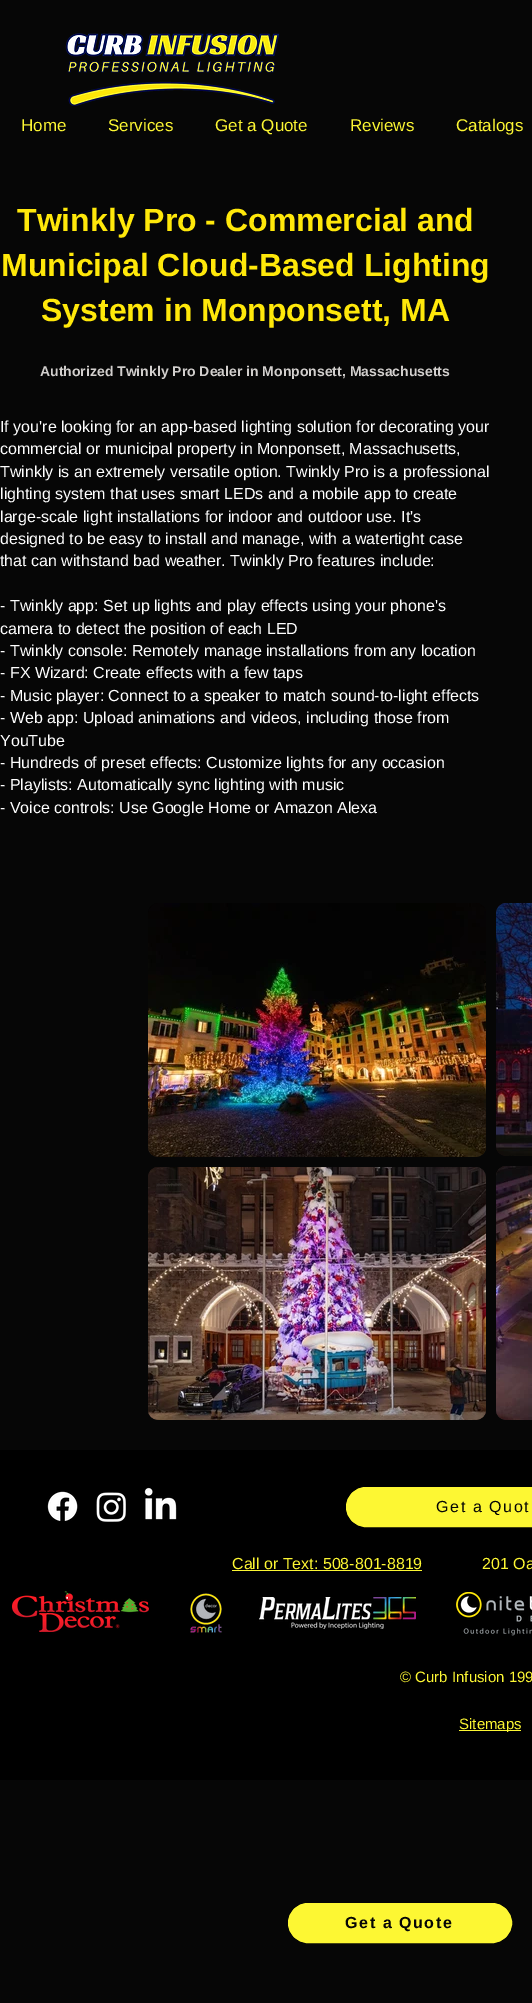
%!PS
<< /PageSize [532 2003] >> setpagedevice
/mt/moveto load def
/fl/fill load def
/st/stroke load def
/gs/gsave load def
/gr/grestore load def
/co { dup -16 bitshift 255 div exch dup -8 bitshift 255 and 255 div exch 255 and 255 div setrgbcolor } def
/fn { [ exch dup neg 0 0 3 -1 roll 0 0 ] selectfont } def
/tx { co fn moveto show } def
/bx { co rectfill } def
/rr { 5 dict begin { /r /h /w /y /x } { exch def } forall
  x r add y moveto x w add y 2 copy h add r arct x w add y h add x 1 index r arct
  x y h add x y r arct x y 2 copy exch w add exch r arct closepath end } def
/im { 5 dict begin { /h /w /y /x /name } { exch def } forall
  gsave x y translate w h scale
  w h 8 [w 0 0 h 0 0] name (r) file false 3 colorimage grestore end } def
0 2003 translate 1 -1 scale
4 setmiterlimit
0 0 532 2003 16#060606 bx
(media/1.raw) 65 33 215 73 im
(media/2.raw) 148 903 338 254 im
(media/3.raw) 148 903 338 254 im
(media/4.raw) 148 1167 338 253 im
(media/5.raw) 148 1167 338 253 im
(media/6.raw) 496 903 10 253 im
(media/7.raw) 496 903 36 253 im
(media/8.raw) 496 1166 10 254 im
(media/9.raw) 496 1166 36 254 im
0 1450 532 330 16#000000 bx
(media/10.raw) 47 1491 31 30 im
(media/11.raw) 96 1492 30 30 im
(media/12.raw) 144 1487 33 33 im
16#FDF733 co
346.5 1487.5 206 39 19.5 rr gs fl gr
st
232 1570 190 1 16#FDF733 bx
(media/13.raw) 12 1591 137 41 im
(media/14.raw) 190 1593 32 40 im
(media/15.raw) 259 1597 157 32 im
(media/16.raw) 456 1592 76 44 im
459 1730 62 1 16#FDF733 bx
288.5 1903.5 223 39 19.5 rr gs fl gr
st
(Home) 21 131 /LiberationSans-Regular 17 16#FDF733 tx
(Services) 108 131 /LiberationSans-Regular 17 16#FDF733 tx
(Get a Quote) 215 131 /LiberationSans-Regular 17 16#FDF733 tx
(Reviews) 350 131 /LiberationSans-Regular 17 16#FDF733 tx
(Catalogs) 456 131 /LiberationSans-Regular 17 16#FDF733 tx
(Twinkly Pro - Commercial and) 17 231 /LiberationSans-Bold 32 16#FFE80A tx
(Municipal Cloud-Based Lighting) 1 276 /LiberationSans-Bold 32 16#FFE80A tx
(System in Monponsett, MA) 41 321 /LiberationSans-Bold 32 16#FFE80A tx
(Authorized Twinkly Pro Dealer in Monponsett, Massachusetts) 40 376 /LiberationSans-Bold 14 16#D2CFCD tx
(If you're looking for an app-based lighting solution for decorating your) 0 432 /LiberationSans-Regular 16 16#FFFFFF tx
(commercial or municipal property in Monponsett, Massachusetts,) 0 454 /LiberationSans-Regular 16 16#FFFFFF tx
(Twinkly is an extremely versatile option. Twinkly Pro is a professional) 0 477 /LiberationSans-Regular 16 16#FFFFFF tx
(lighting system that uses smart LEDs and a mobile app to create) 0 499 /LiberationSans-Regular 16 16#FFFFFF tx
(large-scale light installations for indoor and outdoor use. It's) 0 522 /LiberationSans-Regular 16 16#FFFFFF tx
(designed to be easy to install and manage, with a watertight case) 0 544 /LiberationSans-Regular 16 16#FFFFFF tx
(that can withstand bad weather. Twinkly Pro features include:) 0 566 /LiberationSans-Regular 16 16#FFFFFF tx
(- Twinkly app: Set up lights and play effects using your phone's) 0 611 /LiberationSans-Regular 16 16#FFFFFF tx
(camera to detect the position of each LED) 0 634 /LiberationSans-Regular 16 16#FFFFFF tx
(- Twinkly console: Remotely manage installations from any location) 0 656 /LiberationSans-Regular 16 16#FFFFFF tx
(- FX Wizard: Create effects with a few taps) 0 678 /LiberationSans-Regular 16 16#FFFFFF tx
(- Music player: Connect to a speaker to match sound-to-light effects) 0 701 /LiberationSans-Regular 16 16#FFFFFF tx
(- Web app: Upload animations and videos, including those from) 0 723 /LiberationSans-Regular 16 16#FFFFFF tx
(YouTube) 0 746 /LiberationSans-Regular 16 16#FFFFFF tx
(- Hundreds of preset effects: Customize lights for any occasion) 0 768 /LiberationSans-Regular 16 16#FFFFFF tx
(- Playlists: Automatically sync lighting with music) 0 790 /LiberationSans-Regular 16 16#FFFFFF tx
(- Voice controls: Use Google Home or Amazon Alexa) 0 813 /LiberationSans-Regular 16 16#FFFFFF tx
16#060606 co
436 1512 mt 1.6 0 (Get a Quot) ashow
(Call or Text: 508-801-8819) 232 1569 /LiberationSans-Regular 16 16#FDF733 tx
(201 Oa) 482 1569 /LiberationSans-Regular 16 16#FDF733 tx
(© Curb Infusion 199) 400 1682 /LiberationSans-Regular 15 16#FDF733 tx
(Sitemaps) 459 1729 /LiberationSans-Regular 15 16#FDF733 tx
/LiberationSans-Bold 16 fn
16#060606 co
345 1928 mt 1.6 0 (Get a Quote) ashow
showpage
